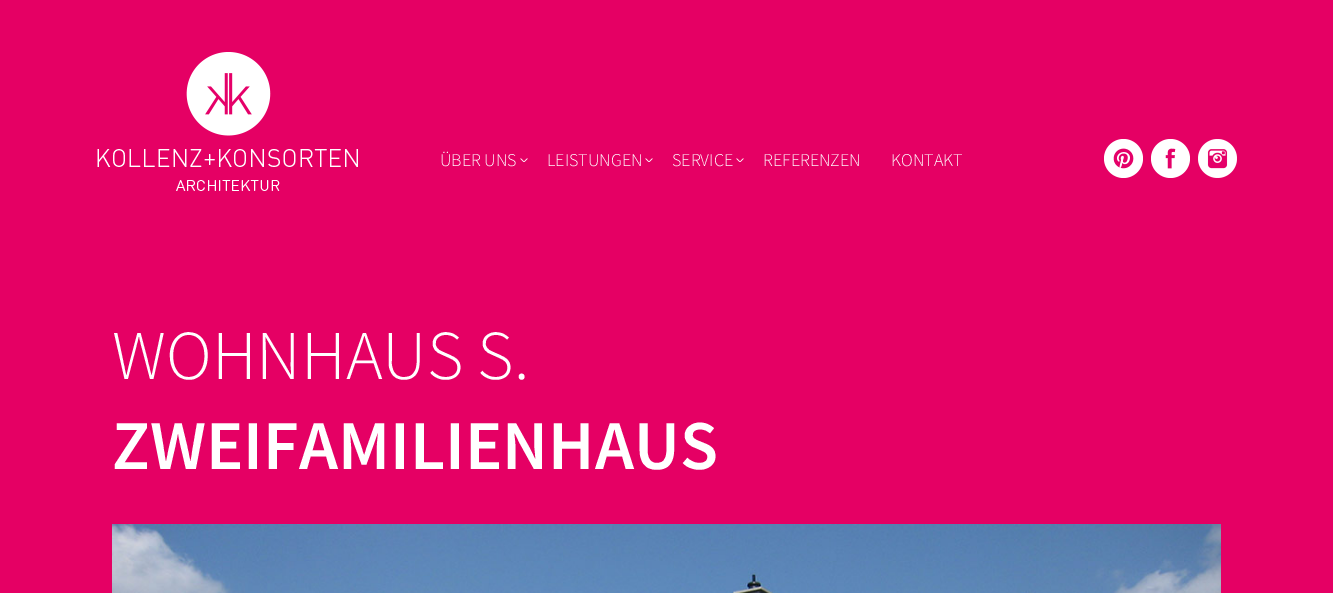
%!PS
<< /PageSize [1333 593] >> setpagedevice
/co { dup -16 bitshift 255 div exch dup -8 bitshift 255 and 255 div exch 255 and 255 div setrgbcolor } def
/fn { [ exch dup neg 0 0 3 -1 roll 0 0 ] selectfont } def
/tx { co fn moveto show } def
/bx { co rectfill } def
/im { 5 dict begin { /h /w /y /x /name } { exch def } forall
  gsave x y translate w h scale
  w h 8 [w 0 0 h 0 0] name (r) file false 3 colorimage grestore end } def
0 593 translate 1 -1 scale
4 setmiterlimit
0 0 1333 593 16#E50064 bx
(media/1.raw) 97 52 261 139 im
(media/2.raw) 520 158 8 4 im
(media/2.raw) 645 158 8 4 im
(media/2.raw) 736 158 8 4 im
(media/3.raw) 1104 139 39 39 im
(media/4.raw) 1151 139 39 39 im
(media/5.raw) 1198 139 39 39 im
(media/6.raw) 112 524 1109 69 im
(ÜBER UNS) 440 166 /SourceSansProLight-Light 18 16#FFFFFF tx
(LEISTUNGEN) 547 166 /SourceSansProLight-Light 18 16#FFFFFF tx
(SERVICE) 672 166 /SourceSansProLight-Light 18 16#FFFFFF tx
(REFERENZEN) 763 166 /SourceSansProLight-Light 18 16#FFFFFF tx
(KONTAKT) 891 166 /SourceSansProLight-Light 18 16#FFFFFF tx
(WOHNHAUS S.) 112 379 /SourceSansProLight-Light 70 16#FFFFFF tx
(ZWEIFAMILIENHAUS) 112 469 /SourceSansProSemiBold-SemiBold 70 16#FFFFFF tx
showpage
